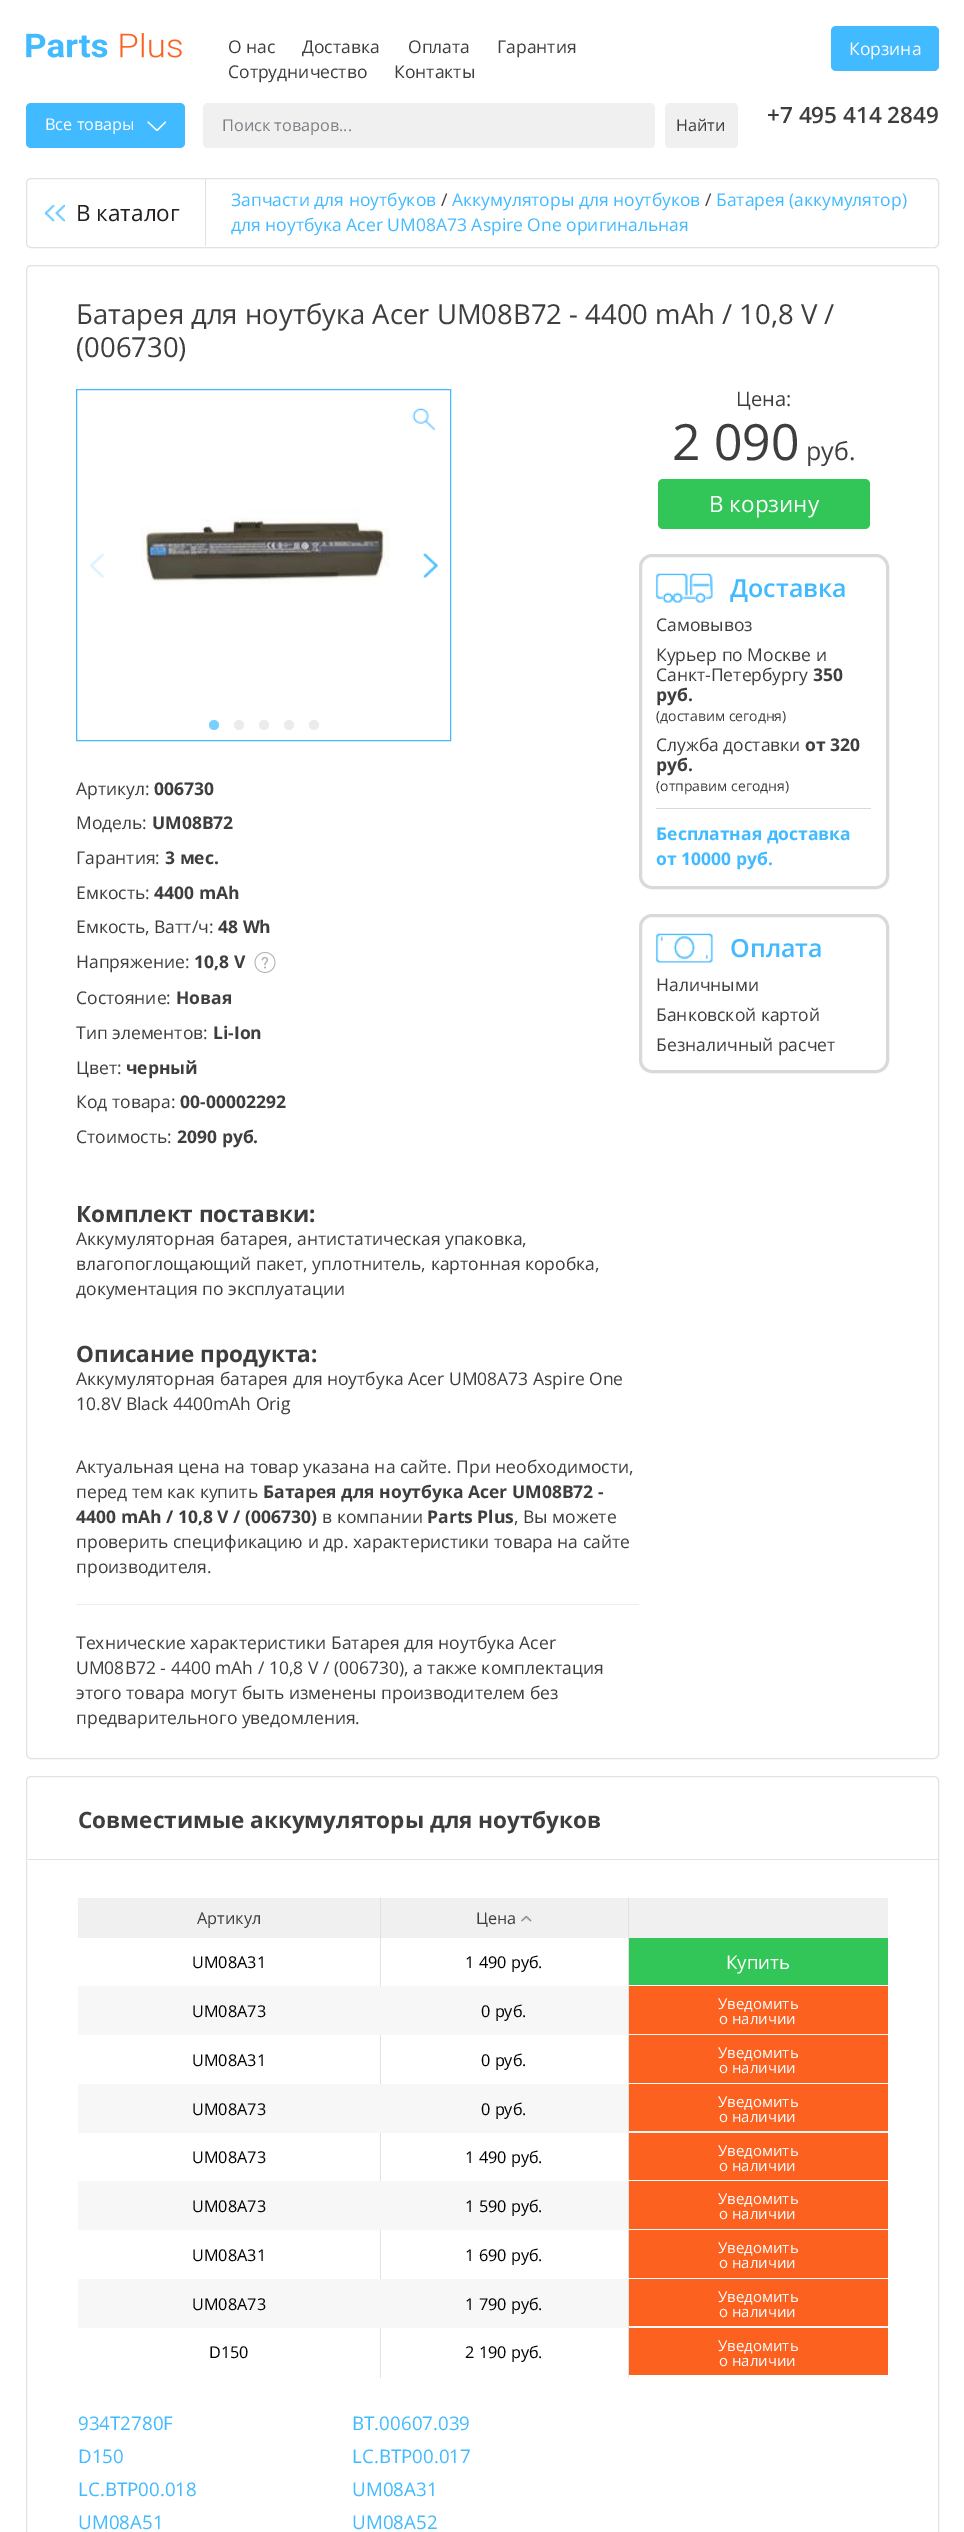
%!PS
<< /PageSize [964 2532] >> setpagedevice
/mt/moveto load def
/li/lineto load def
/fl/fill load def
/st/stroke load def
/lw/setlinewidth load def
/co { dup -16 bitshift 255 div exch dup -8 bitshift 255 and 255 div exch 255 and 255 div setrgbcolor } def
/fn { [ exch dup neg 0 0 3 -1 roll 0 0 ] selectfont } def
/tx { co fn moveto show } def
/bx { co rectfill } def
/ci { newpath 0 360 arc closepath } def
/rr { 5 dict begin { /r /h /w /y /x } { exch def } forall
  x r add y moveto x w add y 2 copy h add r arct x w add y h add x 1 index r arct
  x y h add x y r arct x y 2 copy exch w add exch r arct closepath end } def
/im { 5 dict begin { /h /w /y /x /name } { exch def } forall
  gsave x y translate w h scale
  w h 8 [w 0 0 h 0 0] name (r) file false 3 colorimage grestore end } def
0 2532 translate 1 -1 scale
4 setmiterlimit
0 0 964 2532 16#FFFFFF bx
(media/1.raw) 26 33 156 25 im
16#42BAFF co
831 26 108 45 5 rr fl
26 103 159 45 5 rr fl
16#FFFFFF co
1.2 lw
1 setlinecap
1 setlinejoin
165.5 122 mt 157 130.5 li 148 122 li st
16#F0F0F0 co
203 103 452 45 5 rr fl
665 103 73 45 5 rr fl
16#E2E2E2 co
1 lw
0 setlinecap
0 setlinejoin
26.5 178.5 912 69 4.5 rr st
205 179 1 67 16#E2E2E2 bx
(media/2.raw) 45 205 20 17 im
26.5 265.5 912 1493 4.5 rr st
16#42BAFF co
76.5 389.5 374 351 rectstroke
(media/3.raw) 412 408 23 22 im
(media/4.raw) 90 553 14 25 im
(media/5.raw) 141 508 249 76 im
(media/6.raw) 423 553 15 25 im
16#7BCFFF co
214 725 5 ci fl
16#EBEBEB co
239 725 5 ci fl
264 725 5 ci fl
289 725 5 ci fl
314 725 5 ci fl
(media/7.raw) 254 952 22 21 im
76 1604 563 1 16#EEEEEE bx
16#32C558 co
658 479 212 50 5 rr fl
16#D9D9D9 co
3 lw
640.5 555.5 247 332 11.5 rr st
(media/8.raw) 656 573 57 30 im
656 808 215 1 16#D9D9D9 bx
640.5 915.5 247 156 11.5 rr st
(media/9.raw) 656 933 57 30 im
16#E2E2E2 co
1 lw
26.5 1776.5 912 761 4.5 rr st
28 1859 910 1 16#E2E2E2 bx
78 1898 302 40 16#F0F0F0 bx
381 1898 247 40 16#F0F0F0 bx
(media/10.raw) 521 1916 11 6 im
629 1898 259 40 16#F0F0F0 bx
380 1898 1 90 16#E2E2E2 bx
629 1938 259 47 16#32C558 bx
78 1986 303 49 16#F7F7F7 bx
381 1986 247 49 16#F7F7F7 bx
629 2034 259 1 16#F7F7F7 bx
629 1986 259 48 16#FD6120 bx
380 2035 1 50 16#E2E2E2 bx
629 2035 259 48 16#FD6120 bx
78 2084 303 49 16#F7F7F7 bx
381 2084 247 49 16#F7F7F7 bx
629 2131 259 2 16#F7F7F7 bx
629 2084 259 47 16#FD6120 bx
380 2133 1 50 16#E2E2E2 bx
629 2133 259 47 16#FD6120 bx
78 2181 303 49 16#F7F7F7 bx
381 2181 247 49 16#F7F7F7 bx
629 2229 259 1 16#F7F7F7 bx
629 2181 259 48 16#FD6120 bx
380 2230 1 50 16#E2E2E2 bx
629 2230 259 48 16#FD6120 bx
78 2279 303 49 16#F7F7F7 bx
381 2279 247 49 16#F7F7F7 bx
629 2326 259 2 16#F7F7F7 bx
629 2279 259 47 16#FD6120 bx
380 2328 1 50 16#E2E2E2 bx
628 1898 1 480 16#E2E2E2 bx
629 2328 259 47 16#FD6120 bx
(О нас) 228 53 /OpenSans-Regular 17.5 16#3E3E3E tx
(Доставка) 302 53 /OpenSans-Regular 17.5 16#3E3E3E tx
(Оплата) 408 53 /OpenSans-Regular 17.5 16#3E3E3E tx
(Гарантия) 497 53 /OpenSans-Regular 17.5 16#3E3E3E tx
(Сотрудничество) 228 78 /OpenSans-Regular 17.5 16#3E3E3E tx
(Контакты) 394 78 /OpenSans-Regular 17.5 16#3E3E3E tx
(Корзина) 849 55 /OpenSans-Regular 17.5 16#FFFFFF tx
(+7 495 414 2849) 767 123 /OpenSans-SemiBold 22.5 16#3E3E3E tx
(Все товары) 45 130 /OpenSans-Regular 16.25 16#FFFFFF tx
(Поиск товаров...) 222 131 /OpenSans-Regular 16.25 16#7B8085 tx
(Найти) 676 131 /OpenSans-Regular 16.25 16#3E3E3E tx
(В каталог) 76 221 /OpenSans-Regular 22.5 16#231F20 tx
(Запчасти для ноутбуков) 231 206 /OpenSans-Regular 17.5 16#42BAFF tx
(/) 441 206 /OpenSans-Regular 17.5 16#3E3E3E tx
(Аккумуляторы для ноутбуков) 452 206 /OpenSans-Regular 17.5 16#42BAFF tx
(/) 705 206 /OpenSans-Regular 17.5 16#3E3E3E tx
(Батарея \(аккумулятор\)) 716 206 /OpenSans-Regular 17.5 16#42BAFF tx
(для ноутбука Acer UM08A73 Aspire One оригинальная) 231 231 /OpenSans-Regular 17.5 16#42BAFF tx
(Батарея для ноутбука Acer UM08B72 - 4400 mAh / 10,8 V /) 76 324 /OpenSans-Regular 27.5 16#3E3E3E tx
(\(006730\)) 76 357 /OpenSans-Regular 27.5 16#3E3E3E tx
(Артикул:) 76 795 /OpenSans-Regular 17.5 16#3E3E3E tx
(006730) 154 795 /OpenSans-Bold 17.5 16#3E3E3E tx
(Модель:) 76 829 /OpenSans-Regular 17.5 16#3E3E3E tx
(UM08B72) 152 829 /OpenSans-Bold 17.5 16#3E3E3E tx
(Гарантия:) 76 864 /OpenSans-Regular 17.5 16#3E3E3E tx
(3 мес.) 165 864 /OpenSans-Bold 17.5 16#3E3E3E tx
(Емкость:) 76 899 /OpenSans-Regular 17.5 16#3E3E3E tx
(4400 mAh) 154 899 /OpenSans-Bold 17.5 16#3E3E3E tx
(Емкость, Ватт/ч:) 76 933 /OpenSans-Regular 17.5 16#3E3E3E tx
(48 Wh) 218 933 /OpenSans-Bold 17.5 16#3E3E3E tx
(Напряжение:) 76 968 /OpenSans-Regular 17.5 16#3E3E3E tx
(10,8 V) 194 968 /OpenSans-Bold 17.5 16#3E3E3E tx
(Состояние:) 76 1004 /OpenSans-Regular 17.5 16#3E3E3E tx
(Новая) 176 1004 /OpenSans-Bold 17.5 16#3E3E3E tx
(Тип элементов:) 76 1039 /OpenSans-Regular 17.5 16#3E3E3E tx
(Li-Ion) 213 1039 /OpenSans-Bold 17.5 16#3E3E3E tx
(Цвет:) 76 1074 /OpenSans-Regular 17.5 16#3E3E3E tx
(черный) 126 1074 /OpenSans-Bold 17.5 16#3E3E3E tx
(Код товара:) 76 1108 /OpenSans-Regular 17.5 16#3E3E3E tx
(00-00002292) 180 1108 /OpenSans-Bold 17.5 16#3E3E3E tx
(Стоимость:) 76 1143 /OpenSans-Regular 17.5 16#3E3E3E tx
(2090 руб.) 177 1143 /OpenSans-Bold 17.5 16#3E3E3E tx
(Комплект поставки:) 76 1222 /OpenSans-Bold 22.5 16#3E3E3E tx
(Аккумуляторная батарея, антистатическая упаковка,) 76 1245 /OpenSans-Regular 17.5 16#3E3E3E tx
(влагопоглощающий пакет, уплотнитель, картонная коробка,) 76 1270 /OpenSans-Regular 17.5 16#3E3E3E tx
(документация по эксплуатации) 76 1295 /OpenSans-Regular 17.5 16#3E3E3E tx
(Описание продукта:) 76 1362 /OpenSans-Bold 22.5 16#3E3E3E tx
(Аккумуляторная батарея для ноутбука Acer UM08A73 Aspire One) 76 1385 /OpenSans-Regular 17.5 16#3E3E3E tx
(10.8V Black 4400mAh Orig) 76 1410 /OpenSans-Regular 17.5 16#3E3E3E tx
(Актуальная цена на товар указана на сайте. При необходимости,) 76 1473 /OpenSans-Regular 17.5 16#3E3E3E tx
(перед тем как купить) 76 1498 /OpenSans-Regular 17.5 16#3E3E3E tx
(Батарея для ноутбука Acer UM08B72 -) 263 1498 /OpenSans-Bold 17.5 16#3E3E3E tx
(4400 mAh / 10,8 V / \(006730\)) 76 1523 /OpenSans-Bold 17.5 16#3E3E3E tx
(в компании) 322 1523 /OpenSans-Regular 17.5 16#3E3E3E tx
(Parts Plus) 427 1523 /OpenSans-Bold 17.5 16#3E3E3E tx
(, Вы можете) 514 1523 /OpenSans-Regular 17.5 16#3E3E3E tx
(проверить спецификацию и др. характеристики товара на сайте) 76 1548 /OpenSans-Regular 17.5 16#3E3E3E tx
(производителя.) 76 1573 /OpenSans-Regular 17.5 16#3E3E3E tx
(Технические характеристики Батарея для ноутбука Acer) 76 1649 /OpenSans-Regular 17.5 16#3E3E3E tx
(UM08B72 - 4400 mAh / 10,8 V / \(006730\), а также комплектация) 76 1674 /OpenSans-Regular 17.5 16#3E3E3E tx
(этого товара могут быть изменены производителем без) 76 1699 /OpenSans-Regular 17.5 16#3E3E3E tx
(предварительного уведомления.) 76 1724 /OpenSans-Regular 17.5 16#3E3E3E tx
(Цена:) 736 406 /OpenSans-Regular 20 16#3E3E3E tx
(2 090) 672 460 /OpenSans-Regular 50 16#3E3E3E tx
(руб.) 806 460 /OpenSans-Regular 25 16#3E3E3E tx
(В корзину) 709 512 /OpenSans-Regular 22.5 16#FFFFFF tx
(Доставка) 730 597 /OpenSans-SemiBold 25 16#42BAFF tx
(Самовывоз) 656 631 /OpenSans-Regular 17.5 16#3E3E3E tx
(Курьер по Москве и) 656 661 /OpenSans-Regular 17.5 16#3E3E3E tx
(Санкт-Петербургу) 656 681 /OpenSans-Regular 17.5 16#3E3E3E tx
(350) 813 681 /OpenSans-Bold 17.5 16#3E3E3E tx
(руб.) 656 701 /OpenSans-Bold 17.5 16#3E3E3E tx
(\(доставим сегодня\)) 656 721 /OpenSans-Regular 14 16#3E3E3E tx
(Служба доставки) 656 751 /OpenSans-Regular 17.5 16#3E3E3E tx
(от 320) 805 751 /OpenSans-Bold 17.5 16#3E3E3E tx
(руб.) 656 771 /OpenSans-Bold 17.5 16#3E3E3E tx
(\(отправим сегодня\)) 656 791 /OpenSans-Regular 14 16#3E3E3E tx
(Бесплатная доставка) 656 840 /OpenSans-Bold 17.5 16#42BAFF tx
(от 10000 руб.) 656 865 /OpenSans-Bold 17.5 16#42BAFF tx
(Оплата) 730 957 /OpenSans-SemiBold 25 16#42BAFF tx
(Наличными) 656 991 /OpenSans-Regular 17.5 16#3E3E3E tx
(Банковской картой) 656 1021 /OpenSans-Regular 17.5 16#3E3E3E tx
(Безналичный расчет) 656 1051 /OpenSans-Regular 17.5 16#3E3E3E tx
(Совместимые аккумуляторы для ноутбуков) 78 1828 /OpenSans-Bold 22.5 16#3E3E3E tx
(Артикул) 197 1924 /OpenSans-Regular 16.25 16#3E3E3E tx
(Цена) 476 1924 /OpenSans-Regular 16.25 16#3E3E3E tx
(UM08A31) 192 1968 /OpenSans-Regular 16.25 16#000000 tx
(1 490 руб.) 465 1968 /OpenSans-Regular 16.25 16#000000 tx
(Купить) 726 1969 /OpenSans-Regular 18.75 16#FFFFFF tx
(UM08A73) 192 2017 /OpenSans-Regular 16.25 16#000000 tx
(0 руб.) 481 2017 /OpenSans-Regular 16.25 16#000000 tx
(Уведомить) 718 2009 /OpenSans-Regular 15 16#FFFFFF tx
(о наличии) 719 2024 /OpenSans-Regular 15 16#FFFFFF tx
(UM08A31) 192 2066 /OpenSans-Regular 16.25 16#000000 tx
(0 руб.) 481 2066 /OpenSans-Regular 16.25 16#000000 tx
(Уведомить) 718 2058 /OpenSans-Regular 15 16#FFFFFF tx
(о наличии) 719 2073 /OpenSans-Regular 15 16#FFFFFF tx
(UM08A73) 192 2115 /OpenSans-Regular 16.25 16#000000 tx
(0 руб.) 481 2115 /OpenSans-Regular 16.25 16#000000 tx
(Уведомить) 718 2107 /OpenSans-Regular 15 16#FFFFFF tx
(о наличии) 719 2122 /OpenSans-Regular 15 16#FFFFFF tx
(UM08A73) 192 2163 /OpenSans-Regular 16.25 16#000000 tx
(1 490 руб.) 465 2163 /OpenSans-Regular 16.25 16#000000 tx
(Уведомить) 718 2156 /OpenSans-Regular 15 16#FFFFFF tx
(о наличии) 719 2171 /OpenSans-Regular 15 16#FFFFFF tx
(UM08A73) 192 2212 /OpenSans-Regular 16.25 16#000000 tx
(1 590 руб.) 465 2212 /OpenSans-Regular 16.25 16#000000 tx
(Уведомить) 718 2204 /OpenSans-Regular 15 16#FFFFFF tx
(о наличии) 719 2219 /OpenSans-Regular 15 16#FFFFFF tx
(UM08A31) 192 2261 /OpenSans-Regular 16.25 16#000000 tx
(1 690 руб.) 465 2261 /OpenSans-Regular 16.25 16#000000 tx
(Уведомить) 718 2253 /OpenSans-Regular 15 16#FFFFFF tx
(о наличии) 719 2268 /OpenSans-Regular 15 16#FFFFFF tx
(UM08A73) 192 2310 /OpenSans-Regular 16.25 16#000000 tx
(1 790 руб.) 465 2310 /OpenSans-Regular 16.25 16#000000 tx
(Уведомить) 718 2302 /OpenSans-Regular 15 16#FFFFFF tx
(о наличии) 719 2317 /OpenSans-Regular 15 16#FFFFFF tx
(D150) 209 2358 /OpenSans-Regular 16.25 16#000000 tx
(2 190 руб.) 465 2358 /OpenSans-Regular 16.25 16#000000 tx
(Уведомить) 718 2351 /OpenSans-Regular 15 16#FFFFFF tx
(о наличии) 719 2366 /OpenSans-Regular 15 16#FFFFFF tx
(934T2780F) 78 2430 /OpenSans-Regular 18.75 16#42BAFF tx
(BT.00607.039) 352 2430 /OpenSans-Regular 18.75 16#42BAFF tx
(D150) 78 2463 /OpenSans-Regular 18.75 16#42BAFF tx
(LC.BTP00.017) 352 2463 /OpenSans-Regular 18.75 16#42BAFF tx
(LC.BTP00.018) 78 2496 /OpenSans-Regular 18.75 16#42BAFF tx
(UM08A31) 352 2496 /OpenSans-Regular 18.75 16#42BAFF tx
(UM08A51) 78 2529 /OpenSans-Regular 18.75 16#42BAFF tx
(UM08A52) 352 2529 /OpenSans-Regular 18.75 16#42BAFF tx
showpage
